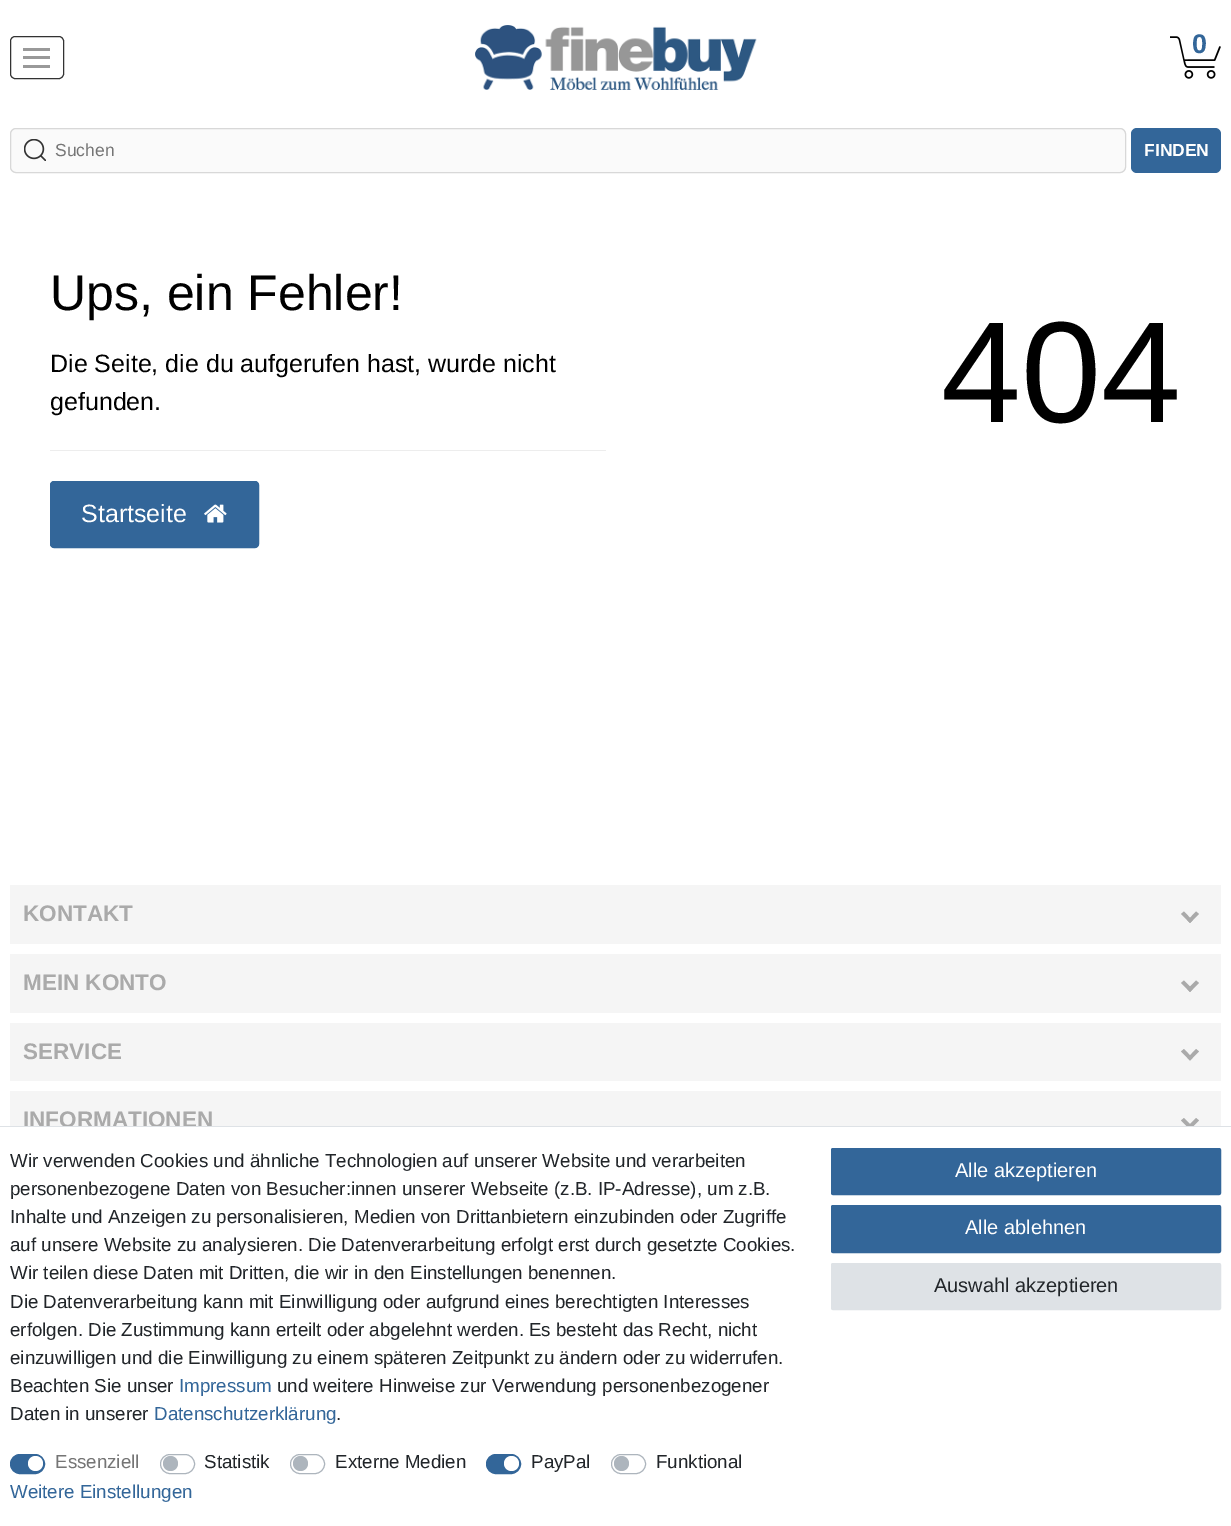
%!PS
<< /PageSize [1231 1526] >> setpagedevice
/mt/moveto load def
/li/lineto load def
/cp/closepath load def
/fl/fill load def
/st/stroke load def
/gs/gsave load def
/gr/grestore load def
/co { dup -16 bitshift 255 div exch dup -8 bitshift 255 and 255 div exch 255 and 255 div setrgbcolor } def
/fn { [ exch dup neg 0 0 3 -1 roll 0 0 ] selectfont } def
/tx { co fn moveto show } def
/bx { co rectfill } def
/ci { newpath 0 360 arc closepath } def
/rr { 5 dict begin { /r /h /w /y /x } { exch def } forall
  x r add y moveto x w add y 2 copy h add r arct x w add y h add x 1 index r arct
  x y h add x y r arct x y 2 copy exch w add exch r arct closepath end } def
/im { 5 dict begin { /h /w /y /x /name } { exch def } forall
  gsave x y translate w h scale
  w h 8 [w 0 0 h 0 0] name (r) file false 3 colorimage grestore end } def
0 1526 translate 1 -1 scale
4 setmiterlimit
0 0 1231 1526 16#FFFFFF bx
16#333333 co
10.5 36.5 53 42 4.5 rr st
23 56 27 3 16#999999 bx
23 48 27 3 16#999999 bx
23 65 27 3 16#999999 bx
(media/1.raw) 475 25 282 65 im
(media/2.raw) 1170 36 51 43 im
16#FAFAFA co
10 128 1116 45 6 rr fl
(media/3.raw) 24 139 22 22 im
16#D8D8D8 co
10.5 128.5 1115 44 5.5 rr st
16#336699 co
1131 128 90 45 6 rr fl
50 450 556 1 16#EDEDED bx
16#336699 co
50.5 481.5 208 66 3.5 rr gs fl gr
st
(media/4.raw) 204 504 23 19 im
10 885 1211 59 16#F5F5F5 bx
16#AAAAAA co
1190 923 mt 1181 914 li 1184 911.5 li 1192.5 920.5 li cp fl
1190 923 mt 1187.5 920.5 li 1196 911.5 li 1199 914 li cp fl
10 954 1211 59 16#F5F5F5 bx
16#AAAAAA co
1190 992 mt 1181 983 li 1184 980.5 li 1192.5 989 li cp fl
1190 992 mt 1187.5 989 li 1196 980.5 li 1199 983 li cp fl
10 1023 1211 58 16#F5F5F5 bx
16#AAAAAA co
1190 1060.5 mt 1181 1051.5 li 1184 1049 li 1192.5 1058 li cp fl
1190 1060.5 mt 1187.5 1058 li 1196 1049 li 1199 1051.5 li cp fl
10 1091 1211 35 16#F5F5F5 bx
16#AAAAAA co
1190 1129.5 mt 1181 1120.5 li 1184 1118 li 1192.5 1126.5 li cp fl
1190 1129.5 mt 1187.5 1126.5 li 1196 1118 li 1199 1120.5 li cp fl
16#336699 co
10.5 1454.5 34 19 9.5 rr gs fl gr
st
16#FFFFFF co
35.5 1463.5 7.5 ci fl
16#ADB5BD co
160.5 1454.5 34 19 9.5 rr st
170.5 1463.5 7.5 ci fl
290.5 1454.5 34 19 9.5 rr st
300.5 1463.5 7.5 ci fl
16#336699 co
486.5 1454.5 34 19 9.5 rr gs fl gr
st
16#FFFFFF co
511.5 1463.5 7.5 ci fl
16#ADB5BD co
611.5 1454.5 34 19 9.5 rr st
621.5 1463.5 7.5 ci fl
16#336699 co
831.5 1148.5 389 46 1.5 rr gs fl gr
st
831.5 1205.5 389 47 1.5 rr gs fl gr
st
16#DEE2E6 co
831.5 1263.5 389 46 1.5 rr gs fl gr
st
(0) 1192 53 /LiberationSans-Bold 27 16#336699 tx
(Suchen) 55 156 /LiberationSans-Regular 17.5 16#757575 tx
(FINDEN) 1144 156 /LiberationSans-Bold 17.5 16#FFFFFF tx
(Ups, ein Fehler!) 50 310 /LiberationSans-Regular 50 16#000000 tx
(Die Seite, die du aufgerufen hast, wurde nicht) 50 372 /LiberationSans-Regular 25 16#000000 tx
(gefunden.) 50 410 /LiberationSans-Regular 25 16#000000 tx
(Startseite) 81 522 /LiberationSans-Regular 25 16#FFFFFF tx
(404) 941 422 /LiberationSans-Regular 144 16#000000 tx
(KONTAKT) 23 921 /LiberationSans-Bold 22.5 16#AAAAAA tx
(MEIN KONTO) 23 990 /LiberationSans-Bold 22.5 16#AAAAAA tx
(SERVICE) 23 1059 /LiberationSans-Bold 22.5 16#AAAAAA tx
(INFORMATIONEN) 23 1127 /LiberationSans-Bold 22.5 16#AAAAAA tx
65 1127 1128 3 16#FFFFFF bx
0 1126 1231 1 16#DEE2E6 bx
(Wir verwenden Cookies und ähnliche Technologien auf unserer Website und verarbeiten) 10 1167 /LiberationSans-Regular 18.75 16#212529 tx
(personenbezogene Daten von Besucher:innen unserer Webseite \(z.B. IP-Adresse\), um z.B.) 10 1195 /LiberationSans-Regular 18.75 16#212529 tx
(Inhalte und Anzeigen zu personalisieren, Medien von Drittanbietern einzubinden oder Zugriffe) 10 1223 /LiberationSans-Regular 18.75 16#212529 tx
(auf unsere Website zu analysieren. Die Datenverarbeitung erfolgt erst durch gesetzte Cookies.) 10 1251 /LiberationSans-Regular 18.75 16#212529 tx
(Wir teilen diese Daten mit Dritten, die wir in den Einstellungen benennen.) 10 1279 /LiberationSans-Regular 18.75 16#212529 tx
(Die Datenverarbeitung kann mit Einwilligung oder aufgrund eines berechtigten Interesses) 10 1308 /LiberationSans-Regular 18.75 16#212529 tx
(erfolgen. Die Zustimmung kann erteilt oder abgelehnt werden. Es besteht das Recht, nicht) 10 1336 /LiberationSans-Regular 18.75 16#212529 tx
(einzuwilligen und die Einwilligung zu einem späteren Zeitpunkt zu ändern oder zu widerrufen.) 10 1364 /LiberationSans-Regular 18.75 16#212529 tx
(Beachten Sie unser) 10 1392 /LiberationSans-Regular 18.75 16#212529 tx
(Impressum) 179 1392 /LiberationSans-Regular 18.75 16#336699 tx
(und weitere Hinweise zur Verwendung personenbezogener) 277 1392 /LiberationSans-Regular 18.75 16#212529 tx
(Daten in unserer) 10 1420 /LiberationSans-Regular 18.75 16#212529 tx
(Datenschutzerklärung) 154 1420 /LiberationSans-Regular 18.75 16#336699 tx
(.) 336 1420 /LiberationSans-Regular 18.75 16#212529 tx
(Essenziell) 55 1468 /LiberationSans-Regular 18.75 16#757575 tx
(Statistik) 204 1468 /LiberationSans-Regular 18.75 16#212529 tx
(Externe Medien) 335 1468 /LiberationSans-Regular 18.75 16#212529 tx
(PayPal) 531 1468 /LiberationSans-Regular 18.75 16#212529 tx
(Funktional) 656 1468 /LiberationSans-Regular 18.75 16#212529 tx
(Weitere Einstellungen) 10 1498 /LiberationSans-Regular 18.75 16#336699 tx
(Alle akzeptieren) 955 1177 /LiberationSans-Regular 20 16#FFFFFF tx
(Alle ablehnen) 965 1234 /LiberationSans-Regular 20 16#FFFFFF tx
(Auswahl akzeptieren) 934 1292 /LiberationSans-Regular 20 16#212529 tx
showpage
